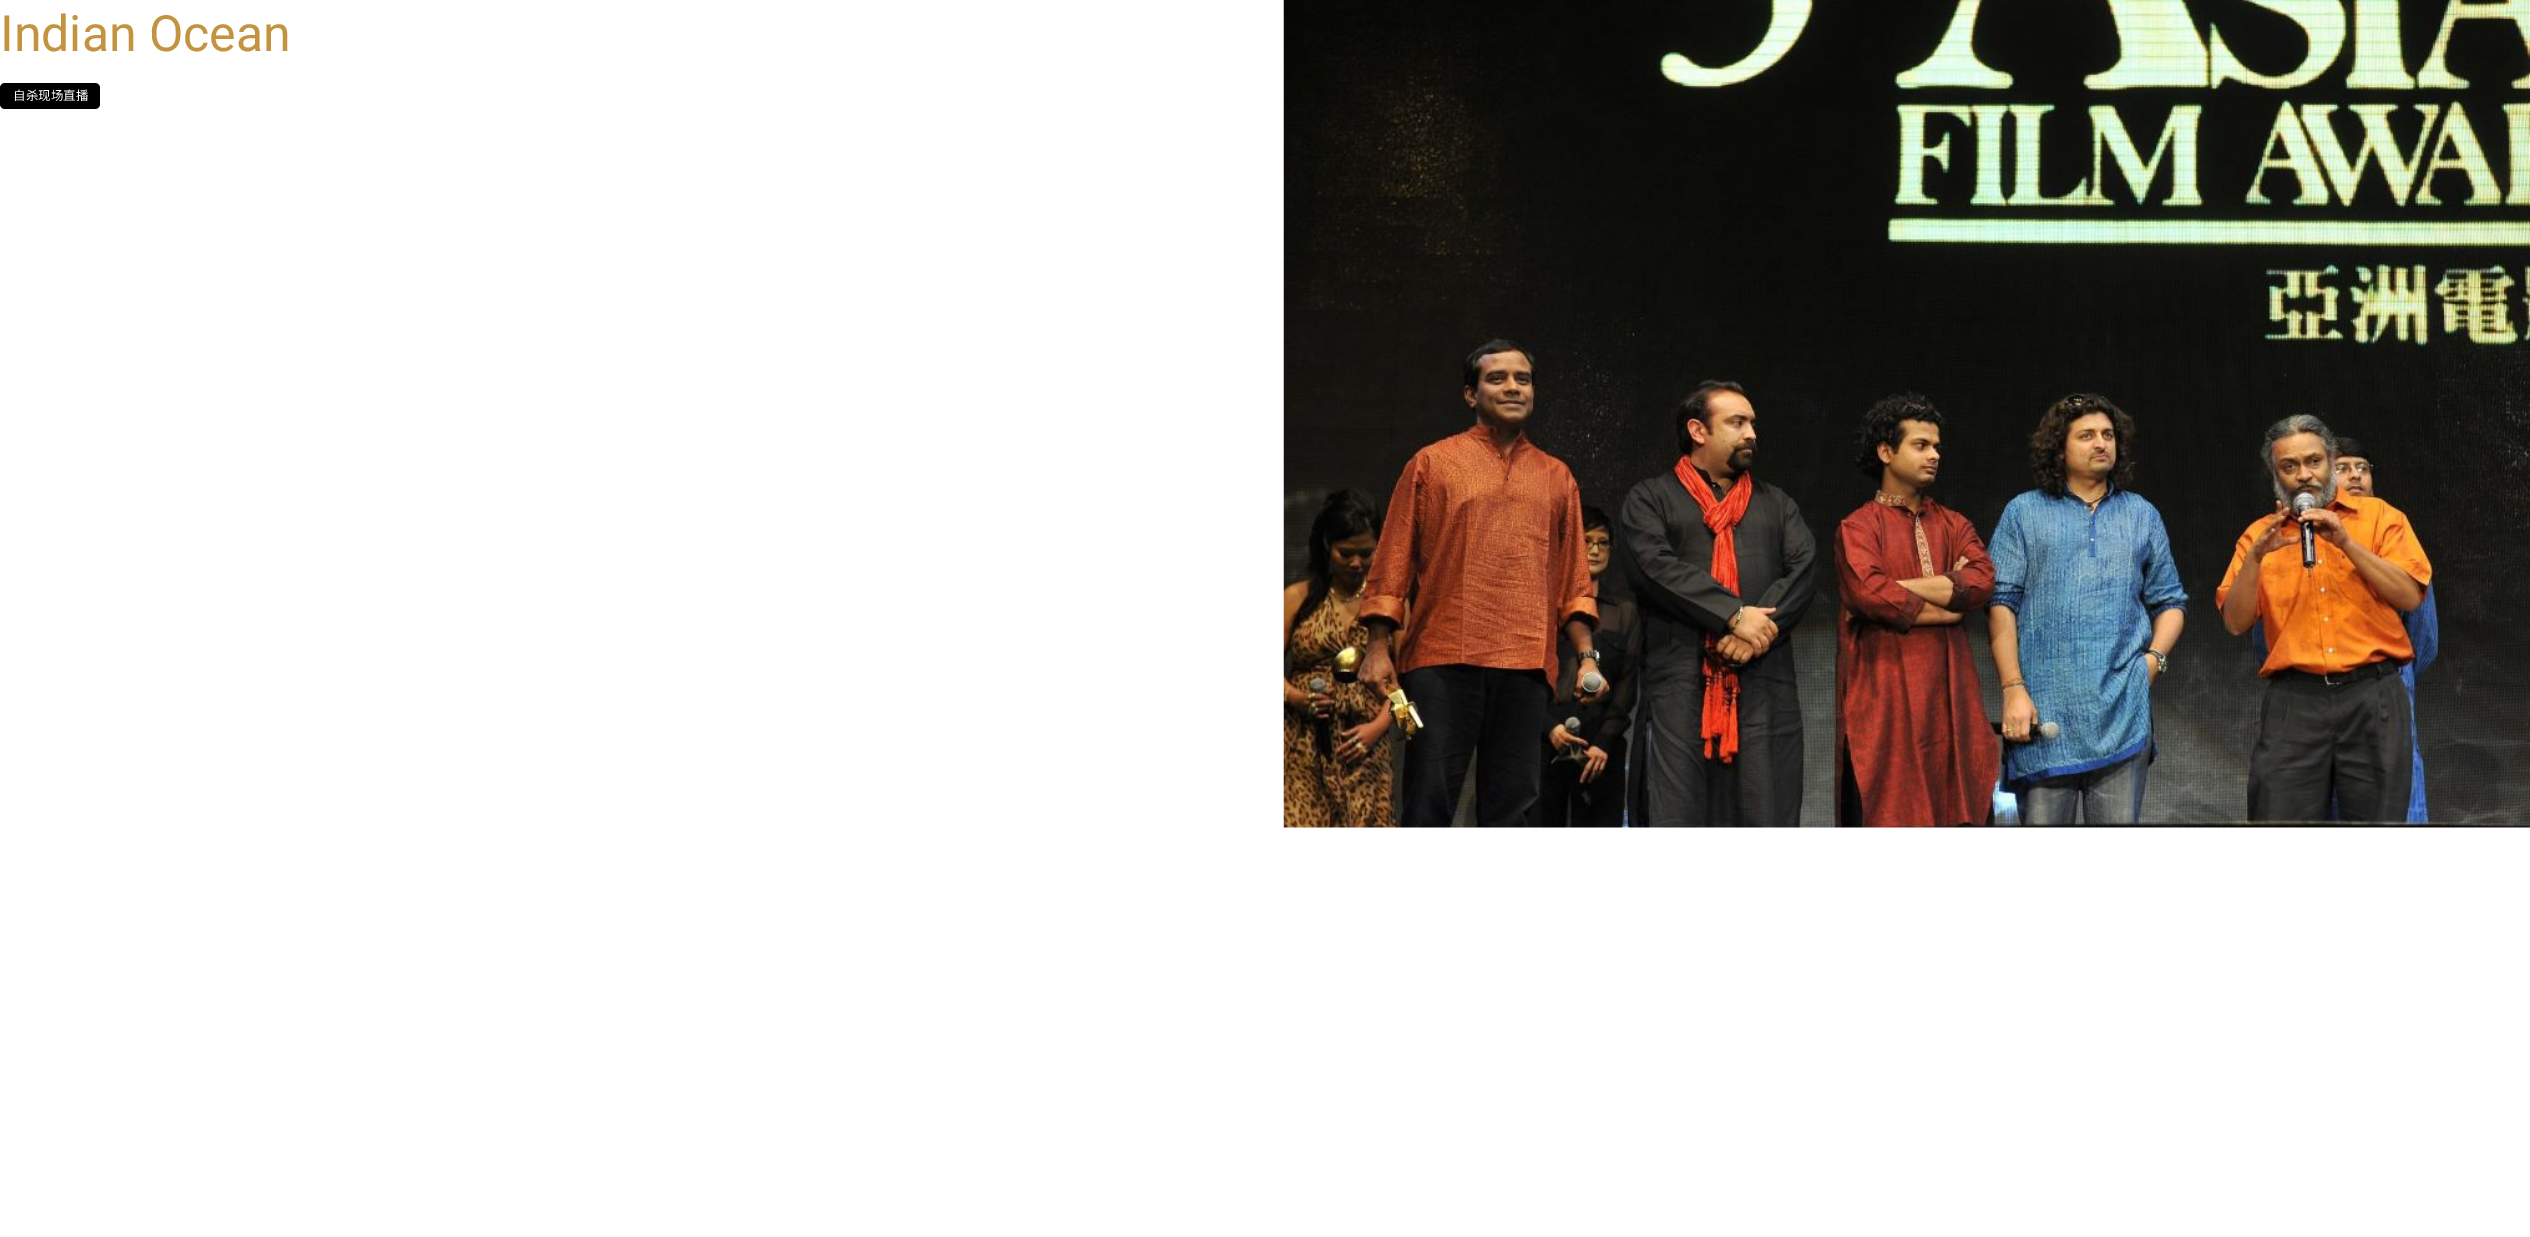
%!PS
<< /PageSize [2530 1237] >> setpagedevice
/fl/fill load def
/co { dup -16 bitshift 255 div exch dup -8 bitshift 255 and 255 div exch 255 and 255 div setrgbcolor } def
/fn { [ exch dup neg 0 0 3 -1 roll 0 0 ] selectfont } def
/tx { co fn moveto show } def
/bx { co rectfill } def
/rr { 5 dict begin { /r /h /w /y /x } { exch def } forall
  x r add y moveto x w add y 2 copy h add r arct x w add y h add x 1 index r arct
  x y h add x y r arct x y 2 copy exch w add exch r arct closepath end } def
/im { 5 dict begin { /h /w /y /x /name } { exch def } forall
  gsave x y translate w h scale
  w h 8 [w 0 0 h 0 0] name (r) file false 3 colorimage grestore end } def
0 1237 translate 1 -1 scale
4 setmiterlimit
0 0 2530 1237 16#FFFFFF bx
16#000000 co
0 83 100 26 5 rr fl
(media/1.raw) 1283 0 1247 828 im
(Indian Ocean) 0 51 /Roboto-Regular 50 16#C39340 tx
(自杀现场直播) 13 100 /NotoSansCJKSC-Regular 12.5 16#FFFFFF tx
showpage
